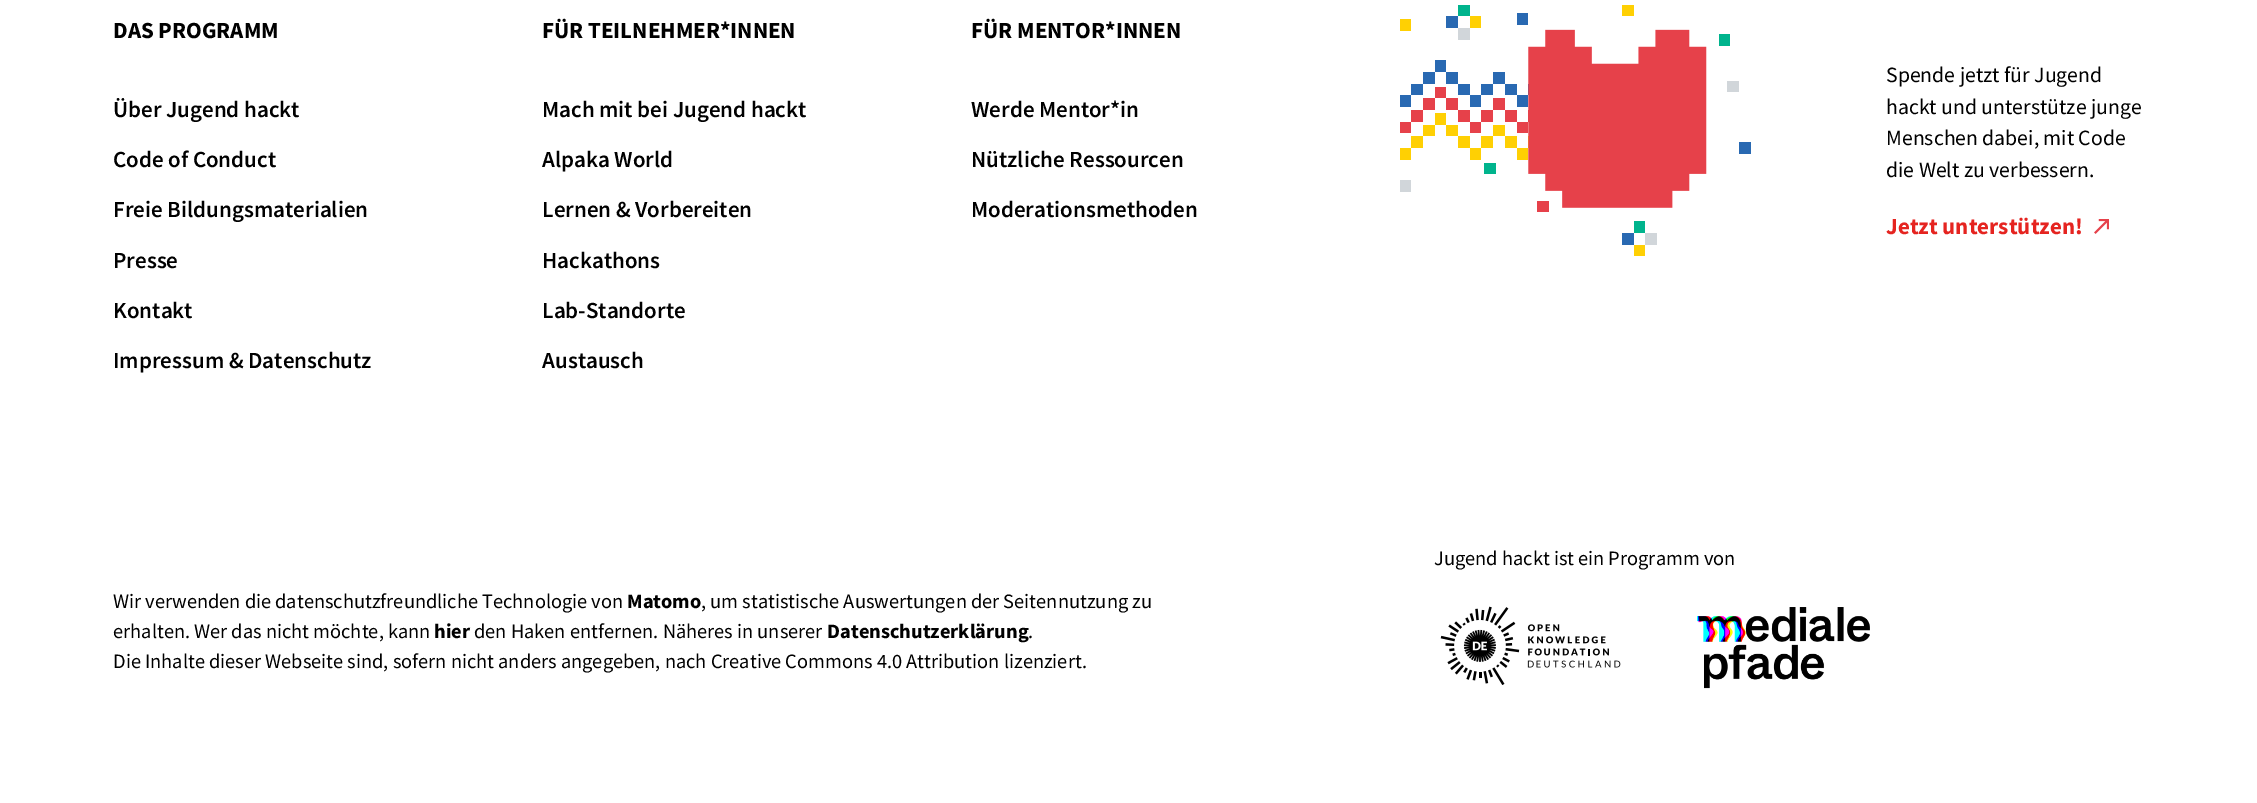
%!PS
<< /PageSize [2257 803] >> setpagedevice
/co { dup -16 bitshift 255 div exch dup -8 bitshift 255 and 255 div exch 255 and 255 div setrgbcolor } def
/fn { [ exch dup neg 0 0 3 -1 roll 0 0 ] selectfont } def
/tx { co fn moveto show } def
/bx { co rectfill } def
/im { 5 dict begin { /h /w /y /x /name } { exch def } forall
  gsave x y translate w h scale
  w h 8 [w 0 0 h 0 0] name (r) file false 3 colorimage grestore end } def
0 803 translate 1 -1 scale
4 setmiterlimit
0 0 2257 803 16#FFFFFF bx
(media/1.raw) 1400 5 351 251 im
(media/2.raw) 2094 219 15 15 im
(media/3.raw) 1440 606 181 79 im
(media/4.raw) 1696 607 174 82 im
(DAS PROGRAMM) 113 38 /SourceSansPro-Bold 23 16#000000 tx
(Über Jugend hackt) 113 117 /SourceSansPro-SemiBold 23 16#000000 tx
(Code of Conduct) 113 167 /SourceSansPro-SemiBold 23 16#000000 tx
(Freie Bildungsmaterialien) 113 217 /SourceSansPro-SemiBold 23 16#000000 tx
(Presse) 113 268 /SourceSansPro-SemiBold 23 16#000000 tx
(Kontakt) 113 318 /SourceSansPro-SemiBold 23 16#000000 tx
(Impressum & Datenschutz) 113 368 /SourceSansPro-SemiBold 23 16#000000 tx
(FÜR TEILNEHMER*INNEN) 542 38 /SourceSansPro-Bold 23 16#000000 tx
(Mach mit bei Jugend hackt) 542 117 /SourceSansPro-SemiBold 23 16#000000 tx
(Alpaka World) 542 167 /SourceSansPro-SemiBold 23 16#000000 tx
(Lernen & Vorbereiten) 542 217 /SourceSansPro-SemiBold 23 16#000000 tx
(Hackathons) 542 268 /SourceSansPro-SemiBold 23 16#000000 tx
(Lab-Standorte) 542 318 /SourceSansPro-SemiBold 23 16#000000 tx
(Austausch) 542 368 /SourceSansPro-SemiBold 23 16#000000 tx
(FÜR MENTOR*INNEN) 971 38 /SourceSansPro-Bold 23 16#000000 tx
(Werde Mentor*in) 971 117 /SourceSansPro-SemiBold 23 16#000000 tx
(Nützliche Ressourcen) 971 167 /SourceSansPro-SemiBold 23 16#000000 tx
(Moderationsmethoden) 971 217 /SourceSansPro-SemiBold 23 16#000000 tx
(Spende jetzt für Jugend) 1886 82 /SourceSansPro-Regular 21.75 16#000000 tx
(hackt und unterstütze junge) 1886 114 /SourceSansPro-Regular 21.75 16#000000 tx
(Menschen dabei, mit Code) 1886 145 /SourceSansPro-Regular 21.75 16#000000 tx
(die Welt zu verbessern.) 1886 177 /SourceSansPro-Regular 21.75 16#000000 tx
(Jetzt unterstützen!) 1886 234 /SourceSansPro-Bold 23 16#E52420 tx
(Jugend hackt ist ein Programm von) 1434 565 /SourceSansPro-Regular 20.4 16#000000 tx
(Wir verwenden die datenschutzfreundliche Technologie von) 113 608 /SourceSansPro-Regular 20.4 16#000000 tx
(Matomo) 627 608 /SourceSansPro-Bold 20.4 16#000000 tx
(, um statistische Auswertungen der Seitennutzung zu) 701 608 /SourceSansPro-Regular 20.4 16#000000 tx
(erhalten. Wer das nicht möchte, kann) 113 638 /SourceSansPro-Regular 20.4 16#000000 tx
(hier) 434 638 /SourceSansPro-Bold 20.4 16#000000 tx
(den Haken entfernen. Näheres in unserer) 474 638 /SourceSansPro-Regular 20.4 16#000000 tx
(Datenschutzerklärung) 827 638 /SourceSansPro-Bold 20.4 16#000000 tx
(.) 1028 638 /SourceSansPro-Regular 20.4 16#000000 tx
(Die Inhalte dieser Webseite sind, sofern nicht anders angegeben, nach Creative Commons 4.0 Attribution lizenziert.) 113 668 /SourceSansPro-Regular 20.4 16#000000 tx
showpage
